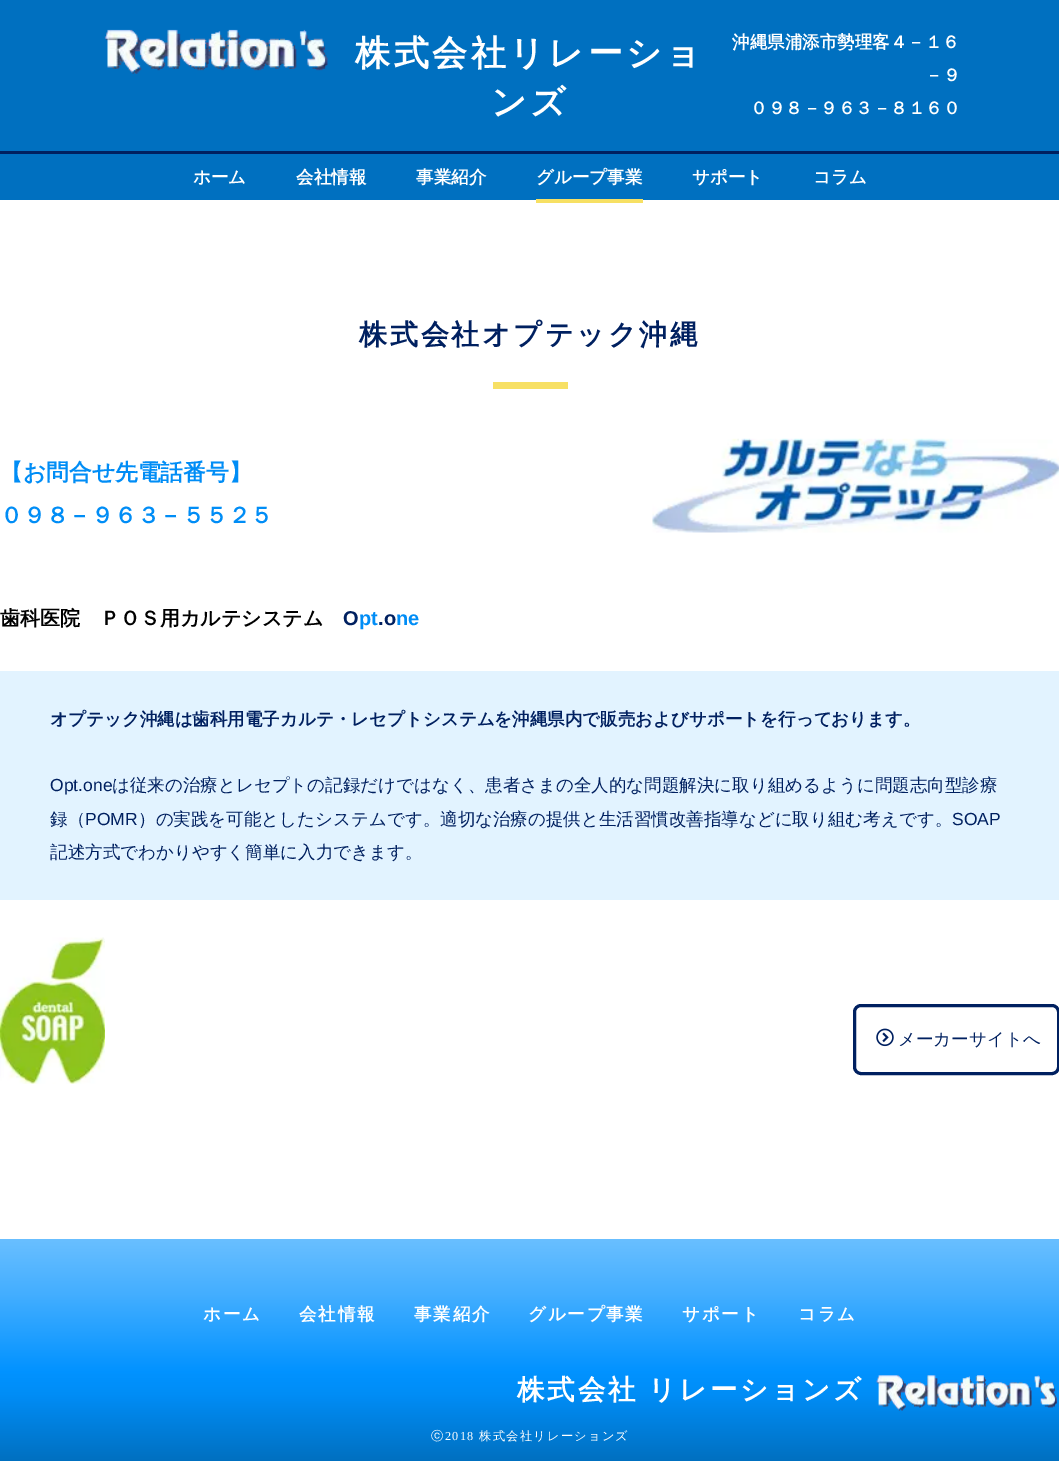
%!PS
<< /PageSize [1059 1461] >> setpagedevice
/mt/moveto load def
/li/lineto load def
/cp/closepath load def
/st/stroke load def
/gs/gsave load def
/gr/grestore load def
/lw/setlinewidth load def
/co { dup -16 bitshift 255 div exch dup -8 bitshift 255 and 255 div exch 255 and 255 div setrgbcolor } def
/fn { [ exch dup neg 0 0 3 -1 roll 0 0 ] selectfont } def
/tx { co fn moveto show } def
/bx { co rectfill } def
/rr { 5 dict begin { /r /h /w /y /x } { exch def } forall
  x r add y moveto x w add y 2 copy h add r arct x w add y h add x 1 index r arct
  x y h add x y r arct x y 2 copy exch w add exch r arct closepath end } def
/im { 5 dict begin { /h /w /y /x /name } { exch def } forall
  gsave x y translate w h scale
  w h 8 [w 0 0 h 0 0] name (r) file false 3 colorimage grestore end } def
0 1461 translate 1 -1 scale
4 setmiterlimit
0 0 1059 1461 16#FFFFFF bx
0 0 1059 200 16#0070C0 bx
(media/1.raw) 104 29 224 45 im
0 151 1059 3 16#002060 bx
536 199 107 4 16#F7E063 bx
493 382 75 7 16#F7E064 bx
(media/2.raw) 652 438 407 95 im
0 671 1059 229 16#E2F3FF bx
(media/3.raw) 0 937 105 147 im
16#002060 co
3 lw
854.5 1005.5 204 68 6.5 rr st
(media/4.raw) 876 1028 18 19 im
gs 0 1239 mt 1059 1239 li 1059 1461 li 0 1461 li cp clip newpath
<< /ShadingType 2 /ColorSpace /DeviceRGB /Coords [530 1239 530 1461] /Extend [true true] /Function << /FunctionType 3 /Domain [0 1] /Functions [<< /FunctionType 2 /Domain [0 1] /C0 [.412 .749 1] /C1 [.263 .682 1] /N 1 >> << /FunctionType 2 /Domain [0 1] /C0 [.263 .682 1] /C1 [.004 .573 1] /N 1 >> << /FunctionType 2 /Domain [0 1] /C0 [.004 .573 1] /C1 [0 .553 .965] /N 1 >> << /FunctionType 2 /Domain [0 1] /C0 [0 .553 .965] /C1 [0 .439 .753] /N 1 >>] /Bounds [.25 .6 .7] /Encode [0 1 0 1 0 1 0 1] >> >> shfill gr
(media/5.raw) 876 1375 181 36 im
/WenQuanYiZenHei-Bold 35 fn
16#FFFFFF co
355 65 mt 3.5 0 (株式会社リレーショ) ashow
491 114 mt 3.5 0 (ンズ) ashow
(沖縄県浦添市勢理客４－１６) 732 48 /WenQuanYiZenHei-Bold 17.5 16#FFFFFF tx
(－９) 925 81 /WenQuanYiZenHei-Bold 17.5 16#FFFFFF tx
(０９８－９６３－８１６０) 750 114 /WenQuanYiZenHei-Bold 17.5 16#FFFFFF tx
(ホーム) 193 183 /WenQuanYiZenHei-Bold 17.5 16#FFFFFF tx
(会社情報) 296 183 /WenQuanYiZenHei-Bold 17.5 16#FFFFFF tx
(事業紹介) 416 183 /WenQuanYiZenHei-Bold 17.5 16#FFFFFF tx
(グループ事業) 536 183 /WenQuanYiZenHei-Bold 17.5 16#FFFFFF tx
(サポート) 692 183 /WenQuanYiZenHei-Bold 17.5 16#FFFFFF tx
(コラム) 813 183 /WenQuanYiZenHei-Bold 17.5 16#FFFFFF tx
/WenQuanYiZenHei-Bold 28 fn
16#002060 co
359 344 mt 2.75 0 (株式会社オプテック沖縄) ashow
(【お問合せ先電話番号】) 0 480 /WenQuanYiZenHei-Bold 22.75 16#008DF6 tx
(０９８－９６３－５５２５) 0 523 /WenQuanYiZenHei-Bold 22.75 16#008DF6 tx
(歯科医院　ＰＯＳ用カルテシステム) 0 625 /WenQuanYiZenHei-Bold 20 16#000000 tx
(O) 343 625 /LiberationSans-Bold 20 16#002060 tx
(pt) 359 625 /LiberationSans-Bold 20 16#008DF6 tx
(.o) 378 625 /LiberationSans-Bold 20 16#002060 tx
(ne) 396 625 /LiberationSans-Bold 20 16#008DF6 tx
(オプテック沖縄は歯科用電子カルテ・レセプトシステムを沖縄県内で販売およびサポートを行っております。) 50 725 /WenQuanYiZenHei-Bold 17.5 16#002060 tx
(Opt.one) 50 791 /LiberationSans-Regular 17.5 16#002060 tx
(は従来の治療とレセプトの記録だけではなく、患者さまの全人的な問題解決に取り組めるように問題志向型診療) 112 791 /WenQuanYiZenHei-Medium 17.5 16#002060 tx
(録（) 50 825 /WenQuanYiZenHei-Medium 17.5 16#002060 tx
(POMR) 85 825 /LiberationSans-Regular 17.5 16#002060 tx
(）の実践を可能としたシステムです。適切な治療の提供と生活習慣改善指導などに取り組む考えです。) 138 825 /WenQuanYiZenHei-Medium 17.5 16#002060 tx
(SOAP) 952 825 /LiberationSans-Regular 17.5 16#002060 tx
(記述方式でわかりやすく簡単に入力できます。) 50 858 /WenQuanYiZenHei-Medium 17.5 16#002060 tx
(メーカーサイトへ) 898 1045 /WenQuanYiZenHei-Medium 17.5 16#002060 tx
/WenQuanYiZenHei-Bold 17.5 fn
16#FFFFFF co
203 1320 mt 1.75 0 (ホーム) ashow
299 1320 mt 1.75 0 (会社情報) ashow
414 1320 mt 1.75 0 (事業紹介) ashow
528 1320 mt 1.75 0 (グループ事業) ashow
682 1320 mt 1.75 0 (サポート) ashow
798 1320 mt 1.75 0 (コラム) ashow
/WenQuanYiZenHei-Bold 27.5 fn
517 1399 mt -1 0 32 2.75 0 (株式会社 リレーションズ) awidthshow
/WenQuanYiZenHei-Medium 12.25 fn
431 1440 mt 1.25 0 (ⓒ) ashow
/LiberationSerif-Regular 12.25 fn
445 1440 mt 1.25 0 (2018) ashow
/WenQuanYiZenHei-Medium 12.25 fn
479 1440 mt 1.25 0 (株式会社リレーションズ) ashow
showpage
